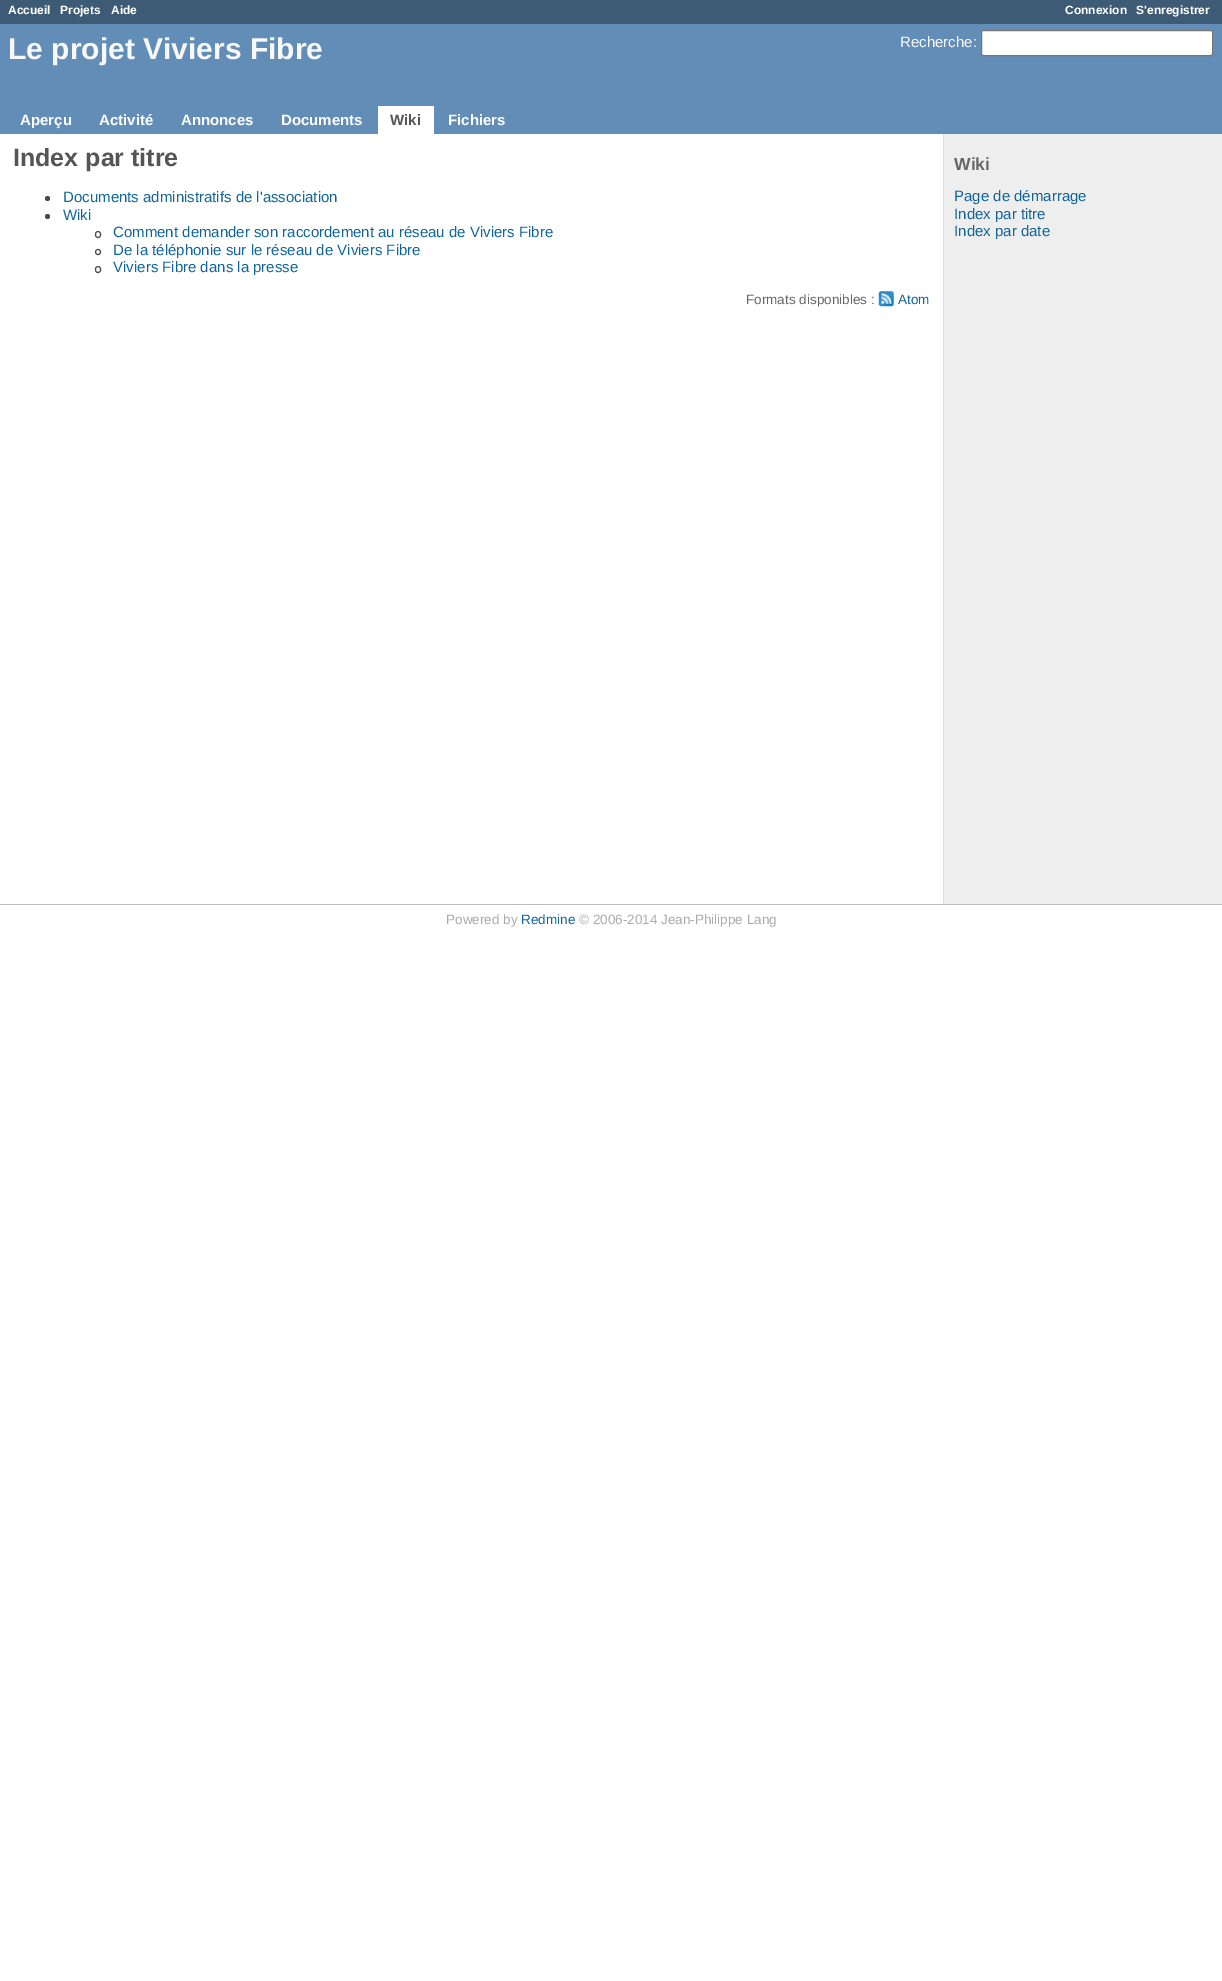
%!PS
<< /PageSize [1222 1981] >> setpagedevice
/fl/fill load def
/st/stroke load def
/gs/gsave load def
/gr/grestore load def
/co { dup -16 bitshift 255 div exch dup -8 bitshift 255 and 255 div exch 255 and 255 div setrgbcolor } def
/fn { [ exch dup neg 0 0 3 -1 roll 0 0 ] selectfont } def
/tx { co fn moveto show } def
/bx { co rectfill } def
/ci { newpath 0 360 arc closepath } def
/rr { 5 dict begin { /r /h /w /y /x } { exch def } forall
  x r add y moveto x w add y 2 copy h add r arct x w add y h add x 1 index r arct
  x y h add x y r arct x y 2 copy exch w add exch r arct closepath end } def
/im { 5 dict begin { /h /w /y /x /name } { exch def } forall
  gsave x y translate w h scale
  w h 8 [w 0 0 h 0 0] name (r) file false 3 colorimage grestore end } def
0 1981 translate 1 -1 scale
4 setmiterlimit
0 0 1222 1981 16#FFFFFF bx
0 0 1222 24 16#3E5B76 bx
0 24 1222 110 16#628DB6 bx
16#FFFFFF co
981.5 30.5 231 25 2 rr gs fl gr
16#767676 co
st
378 106 56 28 16#FFFFFF bx
944 134 278 770 16#EEEEEE bx
943 134 1 770 16#DDDDDD bx
16#484848 co
47.5 198.5 2.5 ci fl
47.5 216.5 2.5 ci fl
95.5 231.5 5 6 2.5 rr st
98 252 2.5 ci st
95.5 266.5 5 6 2.5 rr st
(media/1.raw) 878 291 16 16 im
0 904 1222 1 16#BBBBBB bx
(Accueil) 8 14 /LiberationSans-Bold 12 16#FFFFFF tx
(Projets) 60 14 /LiberationSans-Bold 12 16#FFFFFF tx
(Aide) 111 14 /LiberationSans-Bold 12 16#FFFFFF tx
(Connexion) 1065 14 /LiberationSans-Bold 12 16#FFFFFF tx
(S'enregistrer) 1136 14 /LiberationSans-Bold 12 16#FFFFFF tx
(Le projet Viviers Fibre) 8 59 /LiberationSans-Bold 30 16#F8F8F8 tx
(Recherche:) 900 47 /LiberationSans-Regular 15 16#F8F8F8 tx
(Aperçu) 20 125 /LiberationSans-Bold 15 16#FFFFFF tx
(Activité) 99 125 /LiberationSans-Bold 15 16#FFFFFF tx
(Annonces) 181 125 /LiberationSans-Bold 15 16#FFFFFF tx
(Documents) 281 125 /LiberationSans-Bold 15 16#FFFFFF tx
(Wiki) 390 125 /LiberationSans-Bold 15 16#555555 tx
(Fichiers) 448 125 /LiberationSans-Bold 15 16#FFFFFF tx
(Index par titre) 13 166 /LiberationSans-Bold 25 16#555555 tx
(Documents administratifs de l'association) 63 202 /LiberationSans-Regular 15 16#116699 tx
(Wiki) 63 220 /LiberationSans-Regular 15 16#116699 tx
(Comment demander son raccordement au réseau de Viviers Fibre) 113 237 /LiberationSans-Regular 15 16#116699 tx
(De la téléphonie sur le réseau de Viviers Fibre) 113 255 /LiberationSans-Regular 15 16#116699 tx
(Viviers Fibre dans la presse) 113 272 /LiberationSans-Regular 15 16#116699 tx
(Formats disponibles :) 746 304 /LiberationSans-Regular 13.5 16#666666 tx
(Atom) 898 304 /LiberationSans-Regular 13.5 16#116699 tx
(Wiki) 954 170 /LiberationSans-Bold 17.5 16#666666 tx
(Page de démarrage) 954 201 /LiberationSans-Regular 15 16#116699 tx
(Index par titre) 954 219 /LiberationSans-Regular 15 16#116699 tx
(Index par date) 954 236 /LiberationSans-Regular 15 16#116699 tx
(Powered by) 446 924 /LiberationSans-Regular 13.5 16#AAAAAA tx
(Redmine) 521 924 /LiberationSans-Regular 13.5 16#116699 tx
(© 2006-2014 Jean-Philippe Lang) 579 924 /LiberationSans-Regular 13.5 16#AAAAAA tx
showpage
